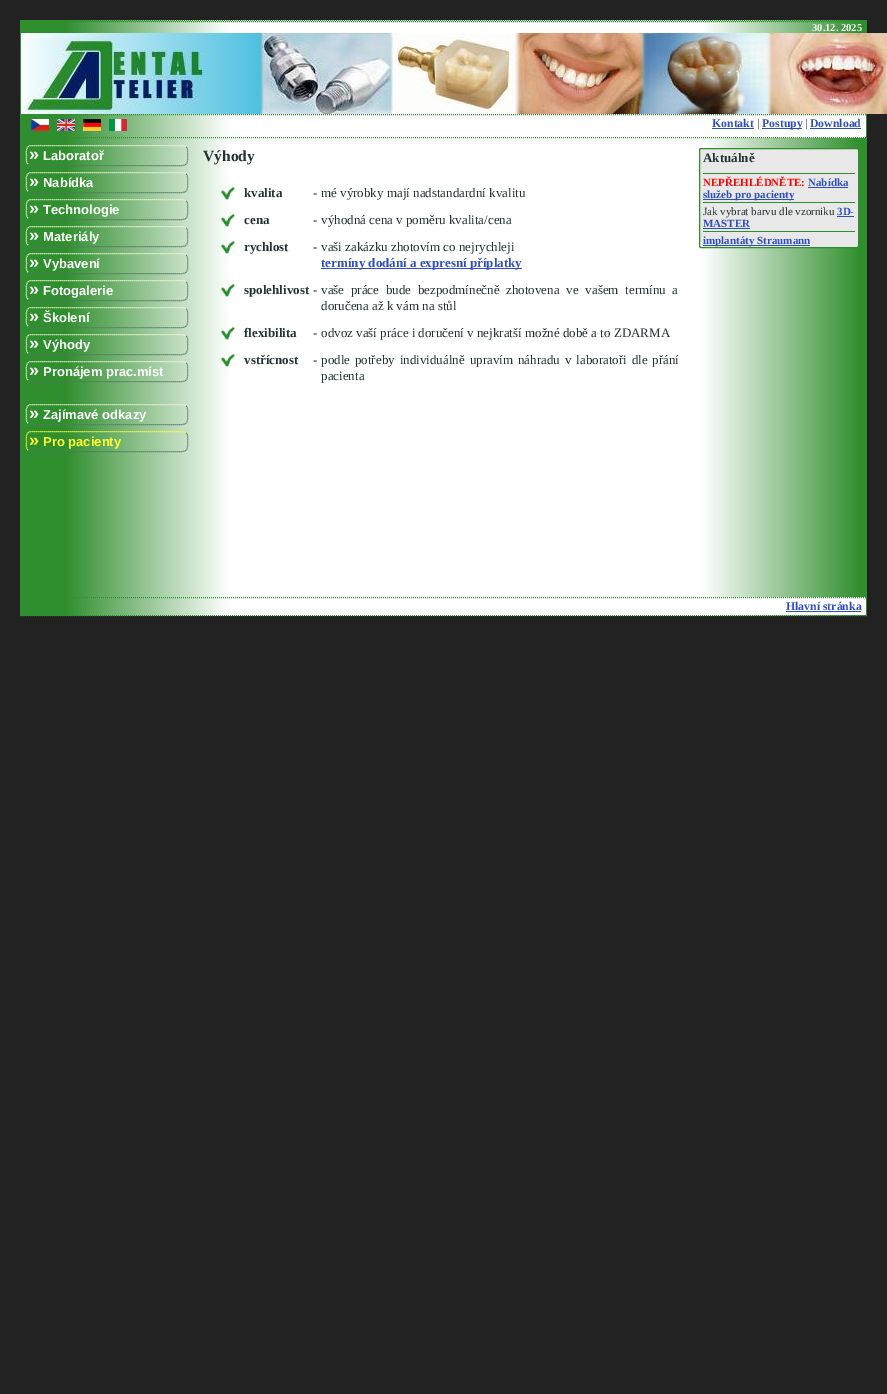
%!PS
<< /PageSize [887 1394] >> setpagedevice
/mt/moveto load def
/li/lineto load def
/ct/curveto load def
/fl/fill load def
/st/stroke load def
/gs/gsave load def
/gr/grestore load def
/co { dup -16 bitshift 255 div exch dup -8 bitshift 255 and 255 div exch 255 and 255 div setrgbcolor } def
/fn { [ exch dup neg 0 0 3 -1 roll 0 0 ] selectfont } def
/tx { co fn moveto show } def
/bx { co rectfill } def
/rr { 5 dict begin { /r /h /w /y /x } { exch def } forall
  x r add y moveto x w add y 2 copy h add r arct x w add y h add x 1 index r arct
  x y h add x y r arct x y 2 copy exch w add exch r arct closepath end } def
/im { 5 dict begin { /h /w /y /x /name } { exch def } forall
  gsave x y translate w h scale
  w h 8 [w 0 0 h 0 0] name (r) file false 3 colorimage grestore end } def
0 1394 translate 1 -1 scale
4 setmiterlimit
0 0 887 1394 16#222222 bx
(media/1.raw) 20 20 847 596 im
16#2F8E2D co
[1 1] 0 setdash
20 20.5 mt 867 20.5 li st
20 615.5 mt 867 615.5 li st
21 21.5 mt 866 21.5 li st
(media/2.raw) 21 33 845 81 im
(media/3.raw) 866 33 21 81 im
705 114 161 24 16#FFFFFF bx
16#2F8E2D co
21 114.5 mt 866 114.5 li st
21 137.5 mt 866 137.5 li st
(media/4.raw) 31 119 18 12 im
(media/5.raw) 57 119 18 12 im
(media/6.raw) 83 119 18 12 im
(media/7.raw) 109 119 18 12 im
712 128 42 1 16#2F4EBD bx
762 128 40 1 16#2F4EBD bx
810 128 51 1 16#2F4EBD bx
16#557766 co
186 147 mt 188.5 149 187.5 153 187.5 155.5 ct 187.5 158.5 188.5 163 185 165 ct 183 165.5 li 31 165.5 li 28 164 li st
16#F5F5DC co
28 164 mt 25.5 162 26.5 158 26.5 155.5 ct 26.5 152.5 25.5 148 29 146 ct 31 145.5 li 183 145.5 li 186 147 li st
16#557766 co
186 174 mt 188.5 176 187.5 180 187.5 182.5 ct 187.5 185.5 188.5 190 185 192 ct 183 192.5 li 31 192.5 li 28 191 li st
16#F5F5DC co
28 191 mt 25.5 189 26.5 185 26.5 182.5 ct 26.5 179.5 25.5 175 29 173 ct 31 172.5 li 183 172.5 li 186 174 li st
16#557766 co
186 201 mt 188.5 203 187.5 207 187.5 209.5 ct 187.5 212.5 188.5 217 185 219 ct 183 219.5 li 31 219.5 li 28 218 li st
16#F5F5DC co
28 218 mt 25.5 216 26.5 212 26.5 209.5 ct 26.5 206.5 25.5 202 29 200 ct 31 199.5 li 183 199.5 li 186 201 li st
16#557766 co
186 228 mt 188.5 230 187.5 234 187.5 236.5 ct 187.5 239.5 188.5 244 185 246 ct 183 246.5 li 31 246.5 li 28 245 li st
16#F5F5DC co
28 245 mt 25.5 243 26.5 239 26.5 236.5 ct 26.5 233.5 25.5 229 29 227 ct 31 226.5 li 183 226.5 li 186 228 li st
16#557766 co
186 255 mt 188.5 257 187.5 261 187.5 263.5 ct 187.5 266.5 188.5 271 185 273 ct 183 273.5 li 31 273.5 li 28 272 li st
16#F5F5DC co
28 272 mt 25.5 270 26.5 266 26.5 263.5 ct 26.5 260.5 25.5 256 29 254 ct 31 253.5 li 183 253.5 li 186 255 li st
16#557766 co
186 282 mt 188.5 284 187.5 288 187.5 290.5 ct 187.5 293.5 188.5 298 185 300 ct 183 300.5 li 31 300.5 li 28 299 li st
16#F5F5DC co
28 299 mt 25.5 297 26.5 293 26.5 290.5 ct 26.5 287.5 25.5 283 29 281 ct 31 280.5 li 183 280.5 li 186 282 li st
16#557766 co
186 309 mt 188.5 311 187.5 315 187.5 317.5 ct 187.5 320.5 188.5 325 185 327 ct 183 327.5 li 31 327.5 li 28 326 li st
16#F5F5DC co
28 326 mt 25.5 324 26.5 320 26.5 317.5 ct 26.5 314.5 25.5 310 29 308 ct 31 307.5 li 183 307.5 li 186 309 li st
16#557766 co
186 336 mt 188.5 338 187.5 342 187.5 344.5 ct 187.5 347.5 188.5 352 185 354 ct 183 354.5 li 31 354.5 li 28 353 li st
16#F5F5DC co
28 353 mt 25.5 351 26.5 347 26.5 344.5 ct 26.5 341.5 25.5 337 29 335 ct 31 334.5 li 183 334.5 li 186 336 li st
16#557766 co
186 363 mt 188.5 365 187.5 369 187.5 371.5 ct 187.5 374.5 188.5 379 185 381 ct 183 381.5 li 31 381.5 li 28 380 li st
16#F5F5DC co
28 380 mt 25.5 378 26.5 374 26.5 371.5 ct 26.5 368.5 25.5 364 29 362 ct 31 361.5 li 183 361.5 li 186 363 li st
16#557766 co
186 406 mt 188.5 408 187.5 412 187.5 414.5 ct 187.5 417.5 188.5 422 185 424 ct 183 424.5 li 31 424.5 li 28 423 li st
16#F5F5DC co
28 423 mt 25.5 421 26.5 417 26.5 414.5 ct 26.5 411.5 25.5 407 29 405 ct 31 404.5 li 183 404.5 li 186 406 li st
16#557766 co
186 433 mt 188.5 435 187.5 439 187.5 441.5 ct 187.5 444.5 188.5 449 185 451 ct 183 451.5 li 31 451.5 li 28 450 li st
16#FFFF33 co
28 450 mt 25.5 448 26.5 444 26.5 441.5 ct 26.5 438.5 25.5 434 29 432 ct 31 431.5 li 183 431.5 li 186 433 li st
(media/8.raw) 220 187 15 13 im
(media/8.raw) 220 214 15 13 im
(media/8.raw) 220 241 15 13 im
321 268 201 1 16#2F4EBD bx
(media/8.raw) 220 284 15 13 im
(media/8.raw) 220 327 15 13 im
(media/8.raw) 220 354 15 13 im
16#E8E8E8 co
699.5 148.5 159 99 1.5 rr gs fl gr
16#2F8E2D co
[] 0 setdash
st
703 173 152 1 16#2F8E2D bx
808 187 40 1 16#2F4EBD bx
703 199 91 1 16#2F4EBD bx
703 202 152 1 16#2F8E2D bx
837 216 17 1 16#2F4EBD bx
703 228 47 1 16#2F4EBD bx
703 231 152 1 16#2F8E2D bx
703 245 107 1 16#2F4EBD bx
705 597 161 18 16#FFFFFF bx
16#2F8E2D co
[1 1] 0 setdash
21 597.5 mt 866 597.5 li st
786 611 75 1 16#2F4EBD bx
(30.12. 2025) 812 31 /LiberationSerif-Bold 10.5 16#FFFFFF tx
(Kontakt) 712 127 /LiberationSerif-Bold 11.75 16#2F4EBD tx
(|) 757 127 /LiberationSerif-Regular 11.75 16#223333 tx
(Postupy) 762 127 /LiberationSerif-Bold 11.75 16#2F4EBD tx
(|) 805 127 /LiberationSerif-Regular 11.75 16#223333 tx
(Download) 810 127 /LiberationSerif-Bold 11.75 16#2F4EBD tx
(») 29 160 /LiberationSans-Bold 18 16#FFFFFF tx
(Laboratoř) 43 160 /LiberationSans-Bold 13 16#FFFFFF tx
(») 29 187 /LiberationSans-Bold 18 16#FFFFFF tx
(Nabídka) 43 187 /LiberationSans-Bold 13 16#FFFFFF tx
(») 29 214 /LiberationSans-Bold 18 16#FFFFFF tx
(Technologie) 43 214 /LiberationSans-Bold 13 16#FFFFFF tx
(») 29 241 /LiberationSans-Bold 18 16#FFFFFF tx
(Materiály) 43 241 /LiberationSans-Bold 13 16#FFFFFF tx
(») 29 268 /LiberationSans-Bold 18 16#FFFFFF tx
(Vybavení) 43 268 /LiberationSans-Bold 13 16#FFFFFF tx
(») 29 295 /LiberationSans-Bold 18 16#FFFFFF tx
(Fotogalerie) 43 295 /LiberationSans-Bold 13 16#FFFFFF tx
(») 29 322 /LiberationSans-Bold 18 16#FFFFFF tx
(Školení) 43 322 /LiberationSans-Bold 13 16#FFFFFF tx
(») 29 349 /LiberationSans-Bold 18 16#FFFFFF tx
(Výhody) 43 349 /LiberationSans-Bold 13 16#FFFFFF tx
(») 29 376 /LiberationSans-Bold 18 16#FFFFFF tx
(Pronájem prac.míst) 43 376 /LiberationSans-Bold 13 16#FFFFFF tx
(») 29 419 /LiberationSans-Bold 18 16#FFFFFF tx
(Zajímavé odkazy) 43 419 /LiberationSans-Bold 13 16#FFFFFF tx
(») 29 446 /LiberationSans-Bold 18 16#FFFF33 tx
(Pro pacienty) 43 446 /LiberationSans-Bold 13 16#FFFF33 tx
(Výhody) 203 161 /LiberationSerif-Bold 15.5 16#223333 tx
(kvalita) 244 197 /LiberationSerif-Bold 13 16#223333 tx
(-) 313 197 /LiberationSerif-Bold 13 16#223333 tx
(mé výrobky mají nadstandardní kvalitu) 321 197 /LiberationSerif-Regular 13 16#223333 tx
(cena) 244 224 /LiberationSerif-Bold 13 16#223333 tx
(-) 313 224 /LiberationSerif-Bold 13 16#223333 tx
(výhodná cena v poměru kvalita/cena) 321 224 /LiberationSerif-Regular 13 16#223333 tx
(rychlost) 244 251 /LiberationSerif-Bold 13 16#223333 tx
(-) 313 251 /LiberationSerif-Bold 13 16#223333 tx
(vaši zakázku zhotovím co nejrychleji) 321 251 /LiberationSerif-Regular 13 16#223333 tx
(termíny dodání a expresní příplatky) 321 267 /LiberationSerif-Bold 13 16#2F4EBD tx
(spolehlivost) 244 294 /LiberationSerif-Bold 13 16#223333 tx
(-) 313 294 /LiberationSerif-Bold 13 16#223333 tx
/LiberationSerif-Regular 13 fn
321 294 mt 3.5 0 32 (vaše práce bude bezpodmínečně zhotovena ve vašem termínu a) widthshow
(doručena až k vám na stůl) 321 310 /LiberationSerif-Regular 13 16#223333 tx
(flexibilita) 244 337 /LiberationSerif-Bold 13 16#223333 tx
(-) 313 337 /LiberationSerif-Bold 13 16#223333 tx
(odvoz vaší práce i doručení v nejkratší možné době a to ZDARMA) 321 337 /LiberationSerif-Regular 13 16#223333 tx
(vstřícnost) 244 364 /LiberationSerif-Bold 13 16#223333 tx
(-) 313 364 /LiberationSerif-Bold 13 16#223333 tx
/LiberationSerif-Regular 13 fn
321 364 mt 1.75 0 32 (podle potřeby individuálně upravím náhradu v laboratoři dle) widthshow
(přání) 652 364 /LiberationSerif-Regular 13 16#223333 tx
(pacienta) 321 380 /LiberationSerif-Regular 13 16#223333 tx
(Aktuálně) 703 162 /LiberationSerif-Bold 13 16#223333 tx
(NEPŘEHLÉDNĚTE:) 703 186 /LiberationSerif-Bold 11 16#FF0000 tx
(Nabídka) 808 186 /LiberationSerif-Bold 11 16#2F4EBD tx
(služeb pro pacienty) 703 198 /LiberationSerif-Bold 11 16#2F4EBD tx
(Jak vybrat barvu dle vzorniku) 703 215 /LiberationSerif-Regular 11 16#223333 tx
(3D-) 837 215 /LiberationSerif-Bold 11 16#2F4EBD tx
(MASTER) 703 227 /LiberationSerif-Bold 11 16#2F4EBD tx
(implantáty Straumann) 703 244 /LiberationSerif-Bold 11 16#2F4EBD tx
(Hlavní stránka) 786 610 /LiberationSerif-Bold 11.75 16#2F4EBD tx
showpage
